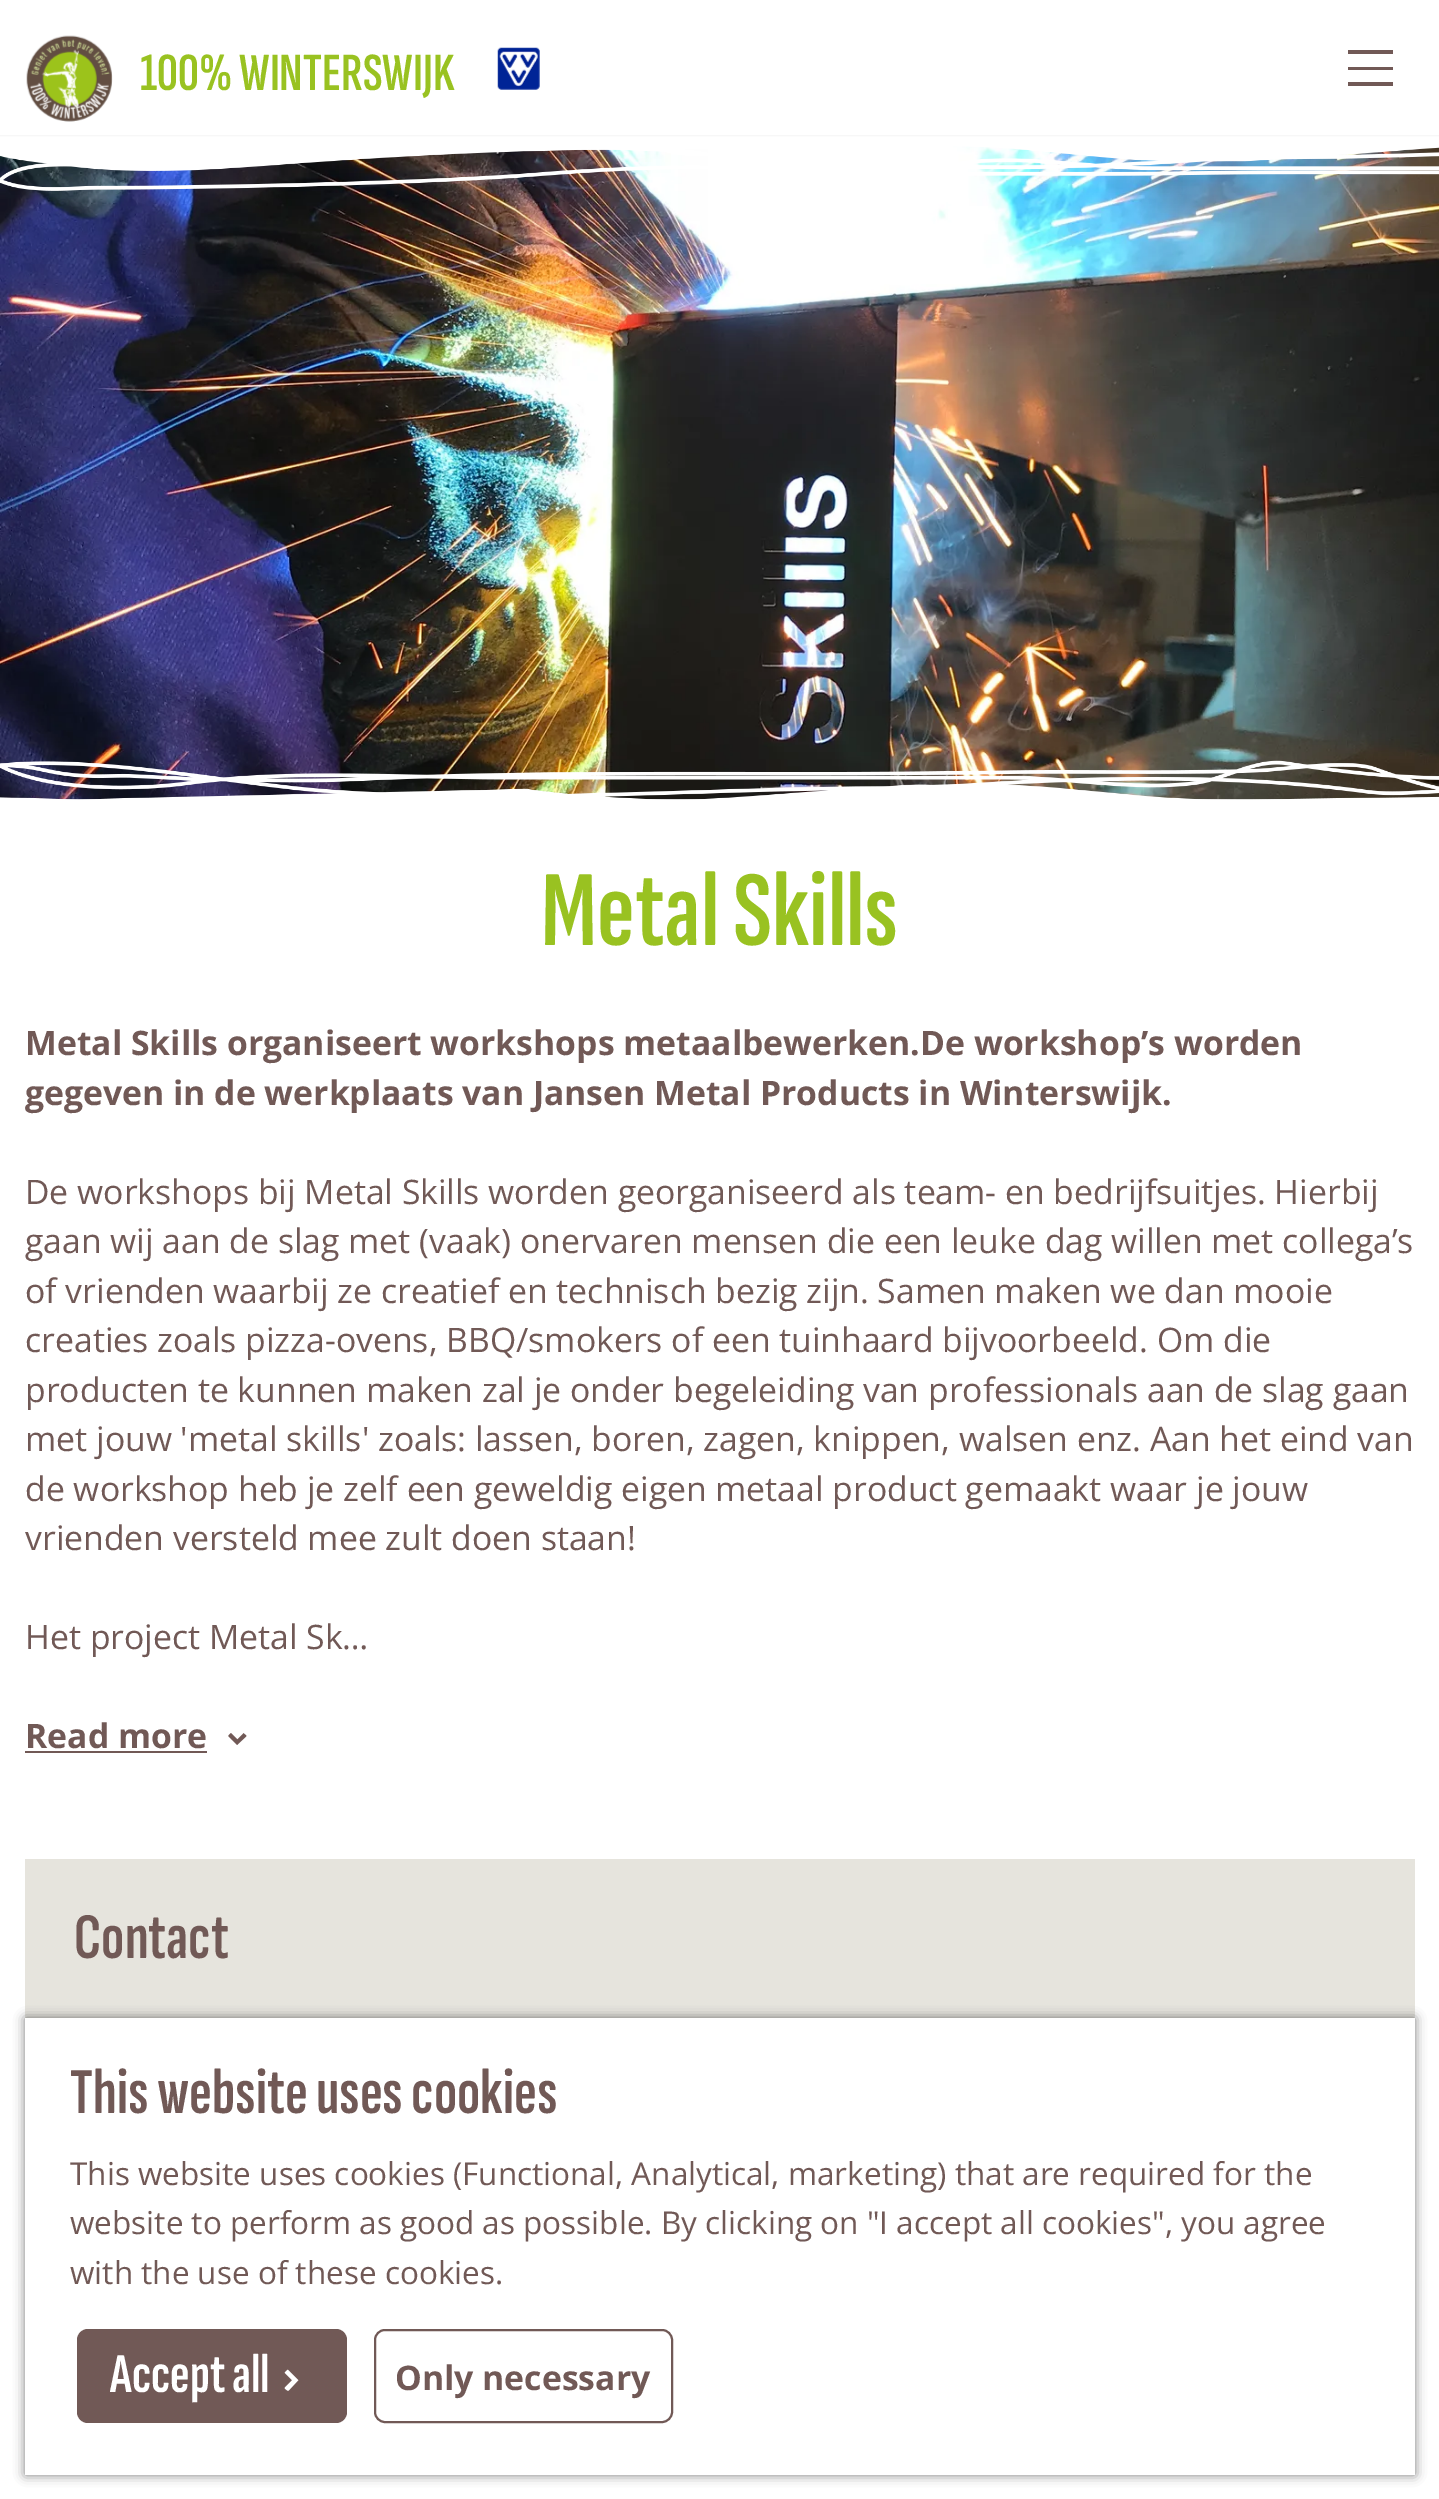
%!PS
<< /PageSize [1439 2499] /PageUsesTransparency true >> setpagedevice
/mt/moveto load def
/li/lineto load def
/cp/closepath load def
/fl/fill load def
/st/stroke load def
/lw/setlinewidth load def
/co { dup -16 bitshift 255 div exch dup -8 bitshift 255 and 255 div exch 255 and 255 div setrgbcolor } def
/fn { [ exch dup neg 0 0 3 -1 roll 0 0 ] selectfont } def
/tx { co fn moveto show } def
/bx { co rectfill } def
/al { dup .setfillconstantalpha .setstrokeconstantalpha } def
/rr { 5 dict begin { /r /h /w /y /x } { exch def } forall
  x r add y moveto x w add y 2 copy h add r arct x w add y h add x 1 index r arct
  x y h add x y r arct x y 2 copy exch w add exch r arct closepath end } def
/sh { 12 dict begin { /a /b /q /h /w /y /x } { exch def } forall gsave /was 0 def
  9 -2 -9 { dup b mul 4 div /e exch def 1 sub .425 mul 2.718 exch exp 1 add a .99 .min exch div /now exch def
    1 1 now sub 1 was sub div sub al /was now def
    w h .min e 2 mul add 0 gt { x e sub y e sub w e 2 mul add h e 2 mul add
      q e add b .6 mul add w h .min 2 div e add .min 0 .max rr fill } if } for grestore end } def
/im { 5 dict begin { /h /w /y /x /name } { exch def } forall
  gsave x y translate w h scale
  w h 8 [w 0 0 h 0 0] name (r) file false 3 colorimage grestore end } def
0 .pushpdf14devicefilter
0 2499 translate 1 -1 scale
4 setmiterlimit
0 0 1439 2499 16#FFFFFF bx
(media/4.raw) 0 145 1439 655 im
(media/3.raw) 0 135 1439 56 im
16#000000 co
0 0 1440 135 0 1 .1 sh
0 0 1439 135 16#FFFFFF bx
(media/1.raw) 26 35 87 87 im
(media/2.raw) 497 47 43 43 im
16#715956 co
1348 50 mt 1393 50 li 1393 54 li 1348 54 li cp 1348 67 mt 1393 67 li 1393 70 li 1348 70 li cp 1348 82 mt 1393 82 li 1393 86 li 1348 86 li cp fl
(media/5.raw) 0 760 1439 50 im
25 1751 182 2 16#715956 bx
(media/6.raw) 228 1733 19 12 im
25 1859 1390 159 16#E6E4DD bx
16#000000 co
25 2018 1390 457 0 5.5 .5 sh
25 2018 1390 457 16#FFFFFF bx
16#715956 co
77 2329 270 94 11 rr fl
(media/7.raw) 284 2369 15 22 im
2 lw
375 2330 297 92 10 rr st
(100% WINTERSWIJK) 140 90 /SofiaSansExtraCondensed-SemiBold 54 16#99C221 tx
(Metal Skills) 541 945 /SofiaSansExtraCondensed-SemiBold 108 16#99C221 tx
(Metal Skills organiseert workshops metaalbewerken.De workshop’s worden) 25 1055 /OpenSans-Bold 33.75 16#715956 tx
(gegeven in de werkplaats van Jansen Metal Products in Winterswijk.) 25 1105 /OpenSans-Bold 33.75 16#715956 tx
(De workshops bij Metal Skills worden georganiseerd als team- en bedrijfsuitjes. Hierbij) 25 1204 /OpenSans-Regular 33.75 16#715956 tx
(gaan wij aan de slag met \(vaak\) onervaren mensen die een leuke dag willen met collega’s) 25 1253 /OpenSans-Regular 33.75 16#715956 tx
(of vrienden waarbij ze creatief en technisch bezig zijn. Samen maken we dan mooie) 25 1303 /OpenSans-Regular 33.75 16#715956 tx
(creaties zoals pizza-ovens, BBQ/smokers of een tuinhaard bijvoorbeeld. Om die) 25 1352 /OpenSans-Regular 33.75 16#715956 tx
(producten te kunnen maken zal je onder begeleiding van professionals aan de slag gaan) 25 1402 /OpenSans-Regular 33.75 16#715956 tx
(met jouw 'metal skills' zoals: lassen, boren, zagen, knippen, walsen enz. Aan het eind van) 25 1451 /OpenSans-Regular 33.75 16#715956 tx
(de workshop heb je zelf een geweldig eigen metaal product gemaakt waar je jouw) 25 1501 /OpenSans-Regular 33.75 16#715956 tx
(vrienden versteld mee zult doen staan!) 25 1550 /OpenSans-Regular 33.75 16#715956 tx
(Het project Metal Sk…) 25 1649 /OpenSans-Regular 33.75 16#715956 tx
(Read more) 25 1748 /OpenSans-Bold 33.75 16#715956 tx
(Contact) 74 1958 /SofiaSansExtraCondensed-SemiBold 65.25 16#715956 tx
(This website uses cookies) 70 2113 /SofiaSansExtraCondensed-SemiBold 65.25 16#715956 tx
(This website uses cookies \(Functional, Analytical, marketing\) that are required for the) 70 2185 /OpenSans-Regular 31.5 16#715956 tx
(website to perform as good as possible. By clicking on "I accept all cookies", you agree) 70 2234 /OpenSans-Regular 31.5 16#715956 tx
(with the use of these cookies.) 70 2284 /OpenSans-Regular 31.5 16#715956 tx
(Accept all) 110 2392 /SofiaSansExtraCondensed-SemiBold 56 16#FFFFFF tx
(Only necessary) 395 2390 /OpenSans-Bold 33.75 16#715956 tx
.poppdf14devicefilter showpage
